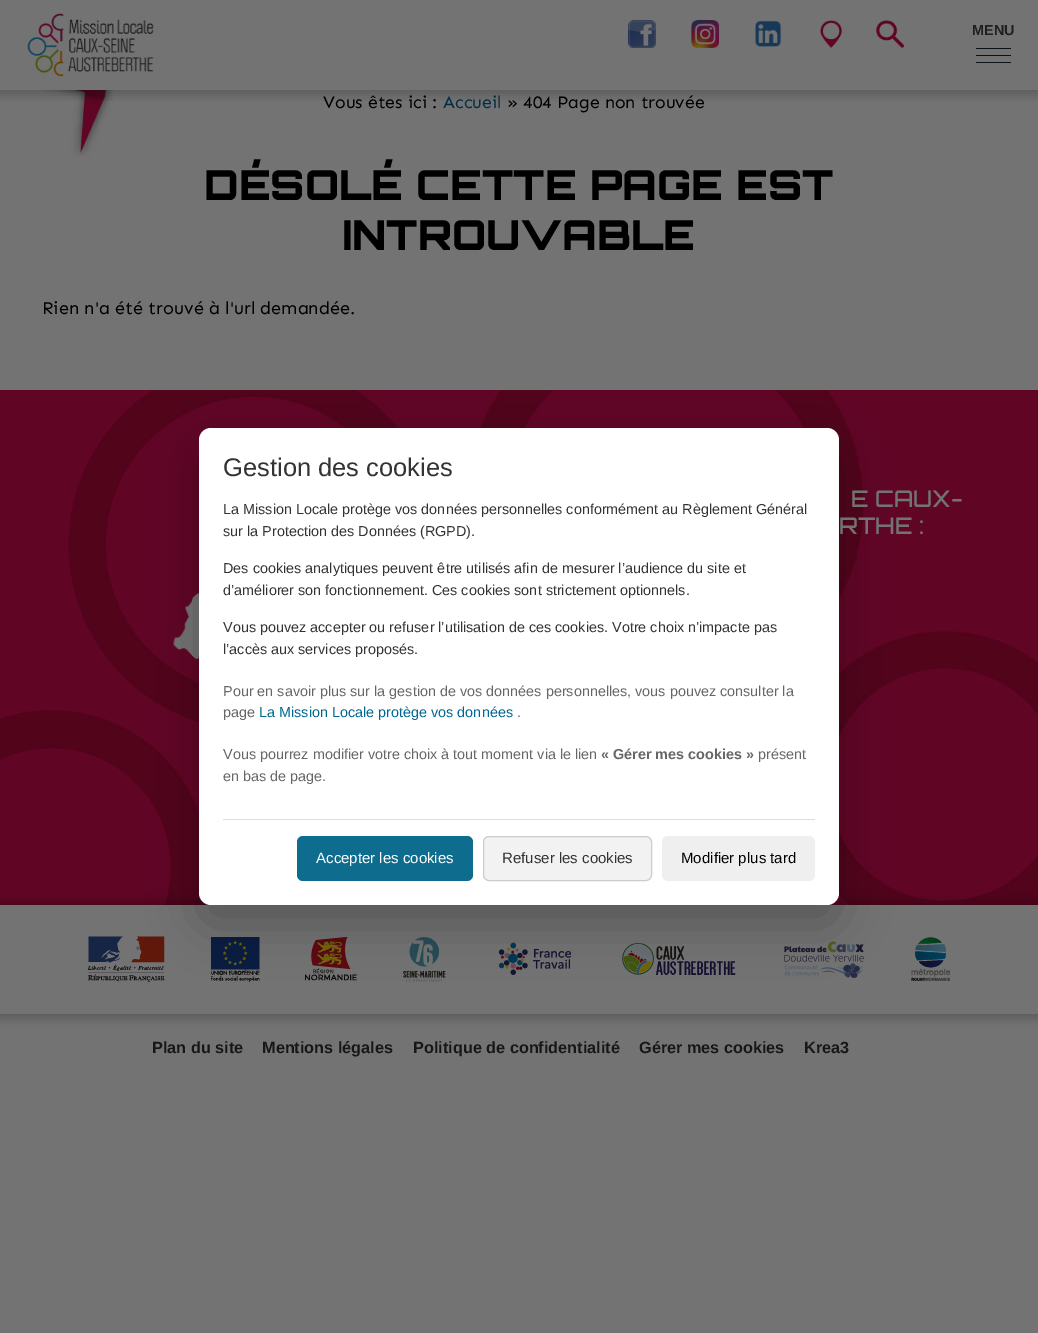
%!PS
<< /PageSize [1038 1333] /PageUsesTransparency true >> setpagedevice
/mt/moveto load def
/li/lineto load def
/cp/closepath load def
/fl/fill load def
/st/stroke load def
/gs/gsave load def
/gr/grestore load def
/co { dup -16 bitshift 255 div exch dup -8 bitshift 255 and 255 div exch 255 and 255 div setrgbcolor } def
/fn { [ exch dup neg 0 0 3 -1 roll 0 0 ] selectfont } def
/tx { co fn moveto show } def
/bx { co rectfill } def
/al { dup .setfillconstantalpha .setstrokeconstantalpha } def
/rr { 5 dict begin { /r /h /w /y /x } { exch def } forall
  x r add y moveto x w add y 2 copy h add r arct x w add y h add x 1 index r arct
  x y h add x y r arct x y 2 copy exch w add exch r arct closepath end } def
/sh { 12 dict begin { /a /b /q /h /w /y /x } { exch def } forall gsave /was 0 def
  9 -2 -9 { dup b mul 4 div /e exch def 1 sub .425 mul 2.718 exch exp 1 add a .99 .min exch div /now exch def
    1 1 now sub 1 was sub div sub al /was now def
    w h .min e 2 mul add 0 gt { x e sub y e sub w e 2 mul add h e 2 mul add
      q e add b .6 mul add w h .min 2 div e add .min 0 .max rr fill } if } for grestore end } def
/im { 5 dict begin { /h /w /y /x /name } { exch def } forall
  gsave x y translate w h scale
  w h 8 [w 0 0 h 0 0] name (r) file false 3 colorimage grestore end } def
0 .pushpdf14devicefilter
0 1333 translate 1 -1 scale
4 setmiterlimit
0 0 1038 1333 16#737373 bx
(media/8.raw) 43 90 71 67 im
gs
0 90 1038 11 rectclip
16#000000 co
-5 -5 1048 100 0 5 .2 sh
gr
(media/1.raw) 27 13 127 64 im
(media/2.raw) 876 20 28 28 im
(media/3.raw) 628 20 28 28 im
(media/4.raw) 691 20 28 28 im
(media/5.raw) 755 20 27 27 im
(media/6.raw) 820 20 22 28 im
(media/7.raw) 976 48 35 15 im
(media/9.raw) 0 390 1038 515 im
(media/10.raw) 173 592 26 67 im
gs
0 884 mt 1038 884 li 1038 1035 li 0 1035 li cp 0 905 mt 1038 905 li 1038 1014 li 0 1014 li cp eoclip newpath
16#000000 co
-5 900 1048 119 0 5 .2 sh
gr
(media/11.raw) 87 936 78 46 im
(media/12.raw) 211 937 49 45 im
(media/13.raw) 305 937 52 44 im
(media/14.raw) 403 937 43 45 im
(media/15.raw) 498 942 74 33 im
(media/16.raw) 622 943 114 32 im
(media/17.raw) 784 941 80 37 im
(media/18.raw) 911 937 40 44 im
16#000000 co
199 448 640 477 12 25 .25 sh
16#FFFFFF co
199 428 640 477 12 rr fl
223 819 592 1 16#DDDDDD bx
16#0E6C8E co
297 836 176 45 6 rr fl
16#F2F2F2 co
483.5 836.5 168 44 5.5 rr gs fl gr
16#CCCCCC co
st
16#EFEFEF co
662 836 153 45 6 rr fl
(MENU) 972 35 /LiberationSans-Bold 14.4 16#1C2022 tx
(Vous êtes ici :) 323 108 /Sen-Regular 17.6 16#000000 tx
(Accueil) 443 108 /Sen-Regular 17.6 16#002E42 tx
(» 404 Page non trouvée) 507 108 /Sen-Regular 17.6 16#000000 tx
(DÉSOLÉ CETTE PAGE EST) 204 200 /Orbitron-Black 41.4 16#000000 tx
(INTROUVABLE) 343 250 /Orbitron-Black 41.4 16#000000 tx
(Rien n'a été trouvé à l'url demandée.) 42 314 /Sen-Regular 18 16#000000 tx
(Gestion des cookies) 223 476 /LiberationSans-Regular 25.5 16#333333 tx
(La Mission Locale protège vos données personnelles conformément au Règlement Général) 223 514 /LiberationSans-Regular 14.4 16#333333 tx
(sur la Protection des Données \(RGPD\).) 223 536 /LiberationSans-Regular 14.4 16#333333 tx
(Des cookies analytiques peuvent être utilisés afin de mesurer l’audience du site et) 223 573 /LiberationSans-Regular 14.4 16#333333 tx
(d’améliorer son fonctionnement. Ces cookies sont strictement optionnels.) 223 595 /LiberationSans-Regular 14.4 16#333333 tx
(Vous pouvez accepter ou refuser l’utilisation de ces cookies. Votre choix n’impacte pas) 223 632 /LiberationSans-Regular 14.4 16#333333 tx
(l’accès aux services proposés.) 223 654 /LiberationSans-Regular 14.4 16#333333 tx
(Pour en savoir plus sur la gestion de vos données personnelles, vous pouvez consulter la) 223 696 /LiberationSans-Regular 14.4 16#666666 tx
(page) 223 717 /LiberationSans-Regular 14.4 16#666666 tx
(La Mission Locale protège vos données) 259 717 /LiberationSans-Regular 14.4 16#006693 tx
(.) 517 717 /LiberationSans-Regular 14.4 16#666666 tx
(Vous pourrez modifier votre choix à tout moment via le lien) 223 759 /LiberationSans-Regular 14.4 16#666666 tx
(« Gérer mes cookies ») 601 759 /LiberationSans-Bold 14.4 16#666666 tx
(présent) 758 759 /LiberationSans-Regular 14.4 16#666666 tx
(en bas de page.) 223 781 /LiberationSans-Regular 14.4 16#666666 tx
(Accepter les cookies) 316 863 /LiberationSans-Regular 15 16#FFFFFF tx
(Refuser les cookies) 502 863 /LiberationSans-Regular 15 16#333333 tx
(Modifier plus tard) 681 863 /LiberationSans-Regular 15 16#000000 tx
(E CAUX-) 851 507 /Orbitron-Medium 23 16#737373 tx
(RTHE :) 839 534 /Orbitron-Medium 23 16#737373 tx
(Plan du site) 152 1053 /LiberationSans-Bold 16.25 16#171717 tx
(Mentions légales) 262 1053 /LiberationSans-Bold 16.25 16#171717 tx
(Politique de confidentialité) 413 1053 /LiberationSans-Bold 16.25 16#171717 tx
(Gérer mes cookies) 639 1053 /LiberationSans-Bold 16.25 16#171717 tx
(Krea3) 804 1053 /LiberationSans-Bold 16.25 16#171717 tx
.poppdf14devicefilter showpage
